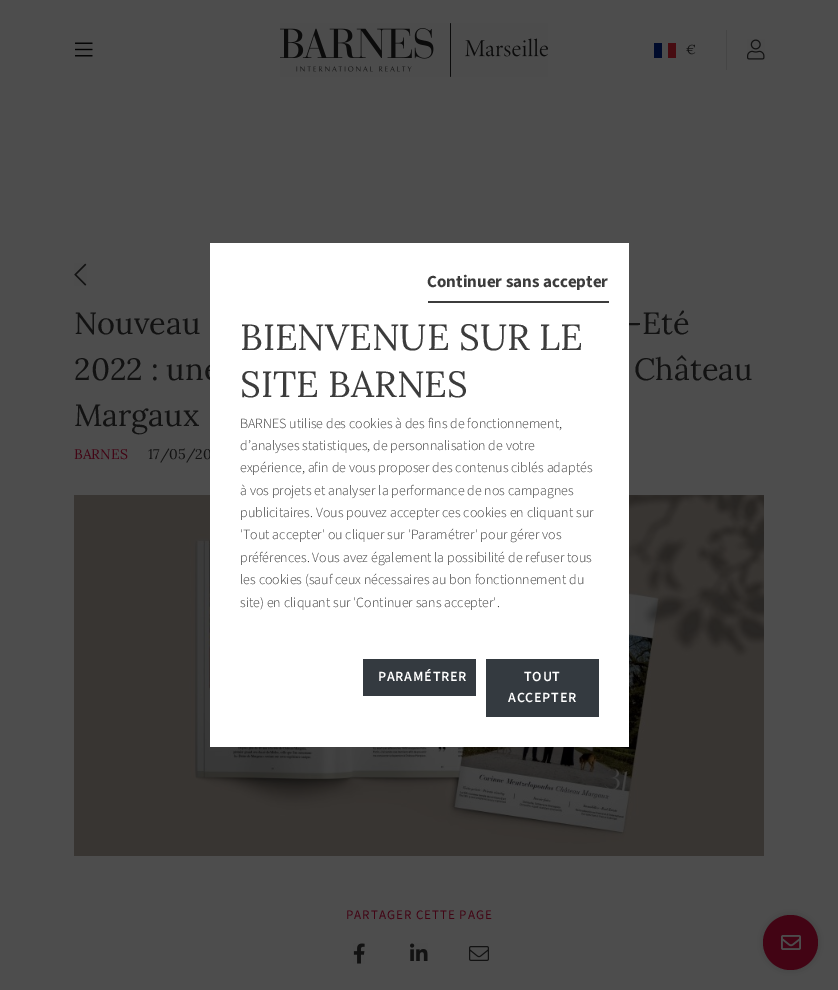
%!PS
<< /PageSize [838 990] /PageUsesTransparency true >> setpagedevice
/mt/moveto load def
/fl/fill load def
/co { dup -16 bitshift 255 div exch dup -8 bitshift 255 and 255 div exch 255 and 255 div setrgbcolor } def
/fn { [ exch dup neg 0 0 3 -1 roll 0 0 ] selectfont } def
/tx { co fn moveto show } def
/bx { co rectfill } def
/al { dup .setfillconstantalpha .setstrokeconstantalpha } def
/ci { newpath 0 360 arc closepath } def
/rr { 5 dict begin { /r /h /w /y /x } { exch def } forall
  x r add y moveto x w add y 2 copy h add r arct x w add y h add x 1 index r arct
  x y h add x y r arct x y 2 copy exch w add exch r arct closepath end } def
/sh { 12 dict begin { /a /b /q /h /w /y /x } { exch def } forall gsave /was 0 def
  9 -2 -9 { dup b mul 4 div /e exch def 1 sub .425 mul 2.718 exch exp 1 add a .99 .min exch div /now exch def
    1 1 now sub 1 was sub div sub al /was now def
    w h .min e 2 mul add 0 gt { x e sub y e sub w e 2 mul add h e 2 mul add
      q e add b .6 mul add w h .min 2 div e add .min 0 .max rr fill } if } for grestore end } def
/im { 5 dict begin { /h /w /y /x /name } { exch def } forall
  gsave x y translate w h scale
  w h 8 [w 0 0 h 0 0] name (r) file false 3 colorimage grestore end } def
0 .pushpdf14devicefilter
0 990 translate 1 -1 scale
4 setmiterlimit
0 0 838 990 16#4D4D4D bx
(media/1.raw) 75 42 18 15 im
(media/2.raw) 280 23 268 54 im
654 43 8 15 16#000B2C bx
668 43 8 15 16#470C11 bx
726 30 1 40 16#454545 bx
(media/3.raw) 747 39 18 21 im
(media/4.raw) 74 495 690 361 im
(media/5.raw) 74 263 13 23 im
(media/6.raw) 353 943 12 21 im
(media/7.raw) 410 943 18 18 im
(media/8.raw) 469 946 20 15 im
16#121212 co
763 915 55 55 27.5 5 .2 sh
16#420414 co
790.5 942.5 27.5 ci fl
(media/9.raw) 781 935 20 15 im
(€) 686 54 /Lora-Regular 13 16#121212 tx
(Nouveau) 74 334 /Lora-Regular 30.75 16#121212 tx
(-Eté) 627 334 /Lora-Regular 30.75 16#121212 tx
(2022 : une) 74 380 /Lora-Regular 30.75 16#121212 tx
(Château) 634 380 /Lora-Regular 30.75 16#121212 tx
(Margaux) 74 426 /Lora-Regular 30.75 16#121212 tx
(BARNES) 74 459 /Lora-Regular 14 16#420414 tx
(17/05/20) 148 459 /Lora-Regular 14 16#121212 tx
210 243 419 504 16#FFFFFF bx
486 659 113 58 16#343A40 bx
/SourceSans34-ExtraLight 14 fn
16#FFFFFF co
508 702 mt .75 0 (ACCEPTER) ashow
524 681 mt .75 0 (TOUT) ashow
363 659 113 37 16#343A40 bx
16#FFFFFF co
378 681 mt .75 0 (PARAMÉTRER) ashow
(site\) en cliquant sur 'Continuer sans accepter'.) 240 607 /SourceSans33-ExtraLight 14 16#3C3C3C tx
(les cookies \(sauf ceux nécessaires au bon fonctionnement du) 240 584 /SourceSans33-ExtraLight 14 16#3C3C3C tx
(préférences. Vous avez également la possibilité de refuser tous) 240 562 /SourceSans33-ExtraLight 14 16#3C3C3C tx
('Tout accepter' ou cliquer sur 'Paramétrer' pour gérer vos) 240 539 /SourceSans33-ExtraLight 14 16#3C3C3C tx
(publicitaires. Vous pouvez accepter ces cookies en cliquant sur) 240 517 /SourceSans33-ExtraLight 14 16#3C3C3C tx
(à vos projets et analyser la performance de nos campagnes) 240 495 /SourceSans33-ExtraLight 14 16#3C3C3C tx
(expérience, afin de vous proposer des contenus ciblés adaptés) 240 472 /SourceSans33-ExtraLight 14 16#3C3C3C tx
(d’analyses statistiques, de personnalisation de votre) 240 450 /SourceSans33-ExtraLight 14 16#3C3C3C tx
(BARNES utilise des cookies à des fins de fonctionnement,) 240 428 /SourceSans33-ExtraLight 14 16#3C3C3C tx
(SITE BARNES) 240 397 /Lora-Regular 36.4 16#3C3C3C tx
(BIENVENUE SUR LE) 240 350 /Lora-Regular 36.4 16#3C3C3C tx
428 301 181 2 16#3C3C3C bx
(Continuer sans accepter) 427 287 /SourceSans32-ExtraLight 17 16#3C3C3C tx
/SourceSans3-ExtraLight 13 fn
16#420414 co
346 919 mt 1 0 (PARTAGER CETTE PAGE) ashow
.poppdf14devicefilter showpage
